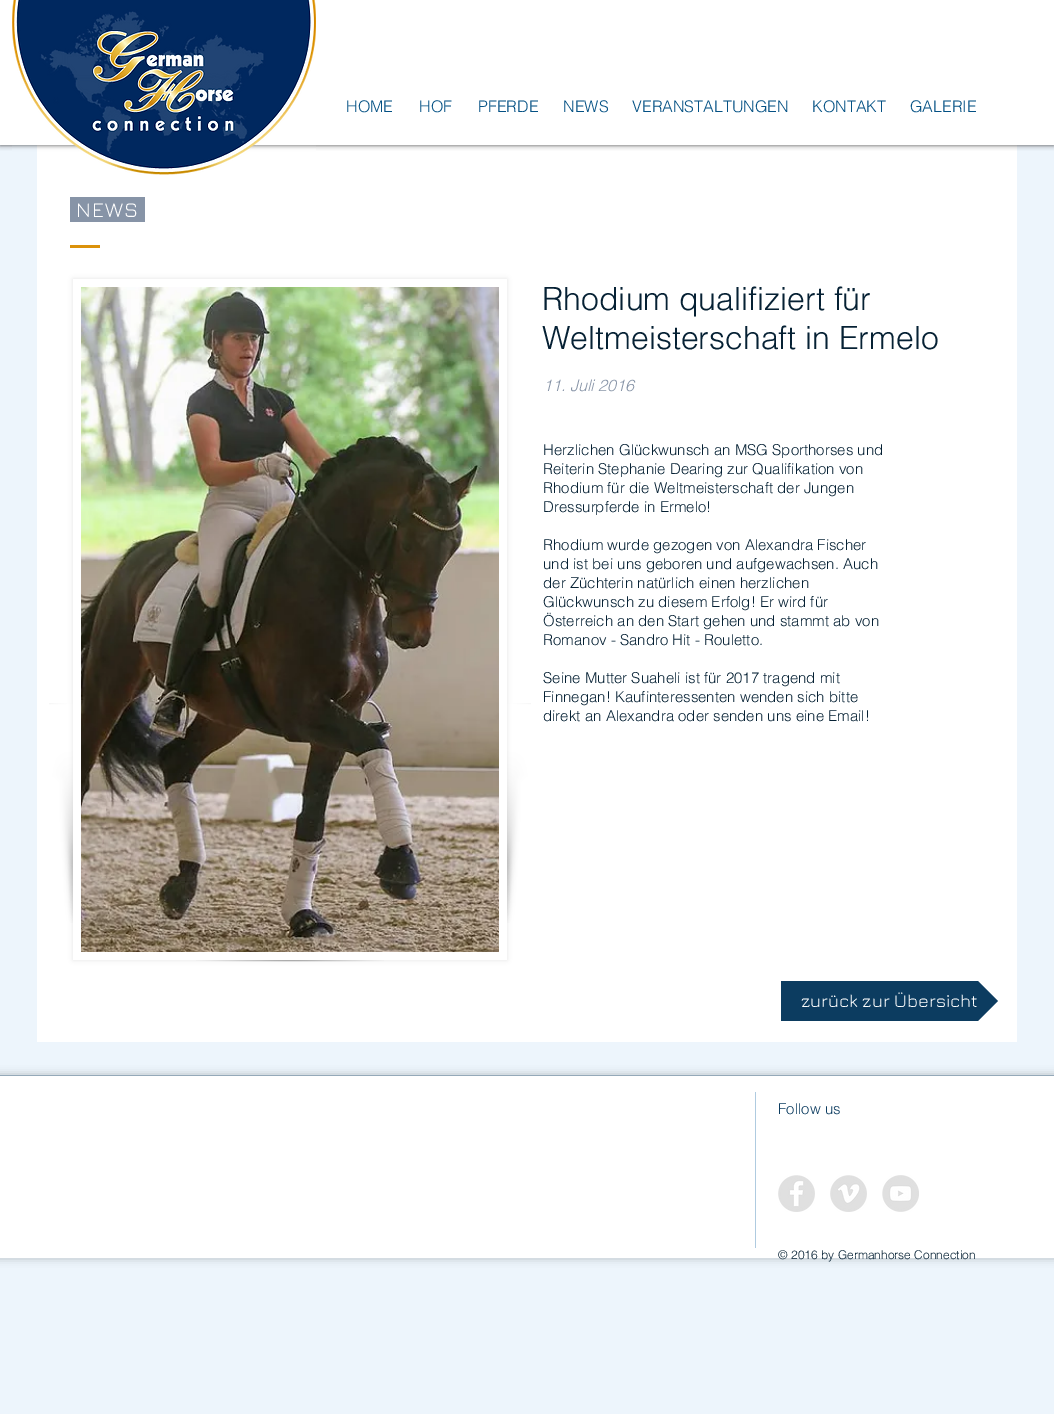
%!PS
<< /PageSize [1054 1414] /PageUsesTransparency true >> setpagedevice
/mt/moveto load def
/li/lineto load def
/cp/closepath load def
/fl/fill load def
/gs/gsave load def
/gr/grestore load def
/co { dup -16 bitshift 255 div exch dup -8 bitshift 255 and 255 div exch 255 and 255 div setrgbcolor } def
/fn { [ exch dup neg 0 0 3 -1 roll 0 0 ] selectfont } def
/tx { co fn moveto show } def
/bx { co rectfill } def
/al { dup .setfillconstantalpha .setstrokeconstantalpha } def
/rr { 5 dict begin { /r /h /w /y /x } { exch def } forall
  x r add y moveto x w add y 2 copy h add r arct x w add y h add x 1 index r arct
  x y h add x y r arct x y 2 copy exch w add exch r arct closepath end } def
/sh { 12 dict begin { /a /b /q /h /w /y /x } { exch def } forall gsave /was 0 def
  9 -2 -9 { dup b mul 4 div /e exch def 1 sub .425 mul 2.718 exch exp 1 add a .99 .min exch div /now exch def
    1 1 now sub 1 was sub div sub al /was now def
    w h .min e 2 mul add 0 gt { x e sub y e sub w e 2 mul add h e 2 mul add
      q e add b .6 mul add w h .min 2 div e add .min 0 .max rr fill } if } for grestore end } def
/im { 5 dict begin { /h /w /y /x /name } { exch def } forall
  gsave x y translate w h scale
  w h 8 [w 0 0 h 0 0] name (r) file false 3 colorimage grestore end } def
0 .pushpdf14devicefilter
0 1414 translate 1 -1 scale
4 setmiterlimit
0 0 1054 1414 16#EDF5FC bx
37 145 980 897 16#FFFFFF bx
16#000000 co
0 0 1054 145 0 2.5 .7 sh
0 0 1054 145 16#FFFFFF bx
(media/1.raw) 12 0 304 175 im
70 197 75 25 16#8794A7 bx
70 245 30 3 16#DB920B bx
gs
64 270 mt 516 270 li 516 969 li 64 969 li cp 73 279 mt 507 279 li 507 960 li 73 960 li cp eoclip newpath
16#000000 co
73 279 434 681 0 2.5 .1 sh
gr
(media/2.raw) 49 703 24 220 im
(media/3.raw) 81 287 418 665 im
(media/4.raw) 196 960 188 2 im
(media/5.raw) 507 703 24 220 im
781 981 167 40 16#0C3C60 bx
gs
781 981 217 40 rectclip
998 1001 mt 948 1001 li 948 951 li cp 948 1001 mt 998 1001 li 948 1051 li cp fl
gr
16#000000 co
-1 1074 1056 185 0 4 .21 sh
0 1076 1054 182 16#FFFFFF bx
0 1075 1054 1 16#94A9B9 bx
755 1092 1 156 16#AFCBE0 bx
(media/6.raw) 778 1175 37 37 im
(media/7.raw) 830 1175 37 37 im
(media/8.raw) 882 1175 37 37 im
(HOME) 346 112 /helvetica-Light 16 16#045184 tx
(HOF) 419 112 /helvetica-Light 16 16#045184 tx
(PFERDE) 478 112 /helvetica-Light 16 16#045184 tx
(NEWS) 563 112 /helvetica-Light 16 16#045184 tx
(VERANSTALTUNGEN) 632 112 /helvetica-Light 16 16#045184 tx
(KONTAKT) 812 112 /helvetica-Light 16 16#045184 tx
(GALERIE) 910 112 /helvetica-Light 16 16#045184 tx
/Jura-Regular 21 fn
16#FFFFFF co
76 217 mt 1 0 (NEWS) ashow
(Rhodium qualifiziert für) 542 310 /helvetica-Light 32 16#062134 tx
(Weltmeisterschaft in Ermelo) 542 349 /helvetica-Light 32 16#062134 tx
(11. Juli 2016) 543 391 /helvetica-LightItalic 16 16#8794A7 tx
(Herzlichen Glückwunsch an MSG Sporthorses und) 543 455 /helvetica-Light 15 16#062134 tx
(Reiterin Stephanie Dearing zur Qualifikation von) 543 474 /helvetica-Light 15 16#062134 tx
(Rhodium für die Weltmeisterschaft der Jungen) 543 493 /helvetica-Light 15 16#062134 tx
(Dressurpferde in Ermelo!) 543 512 /helvetica-Light 15 16#062134 tx
(Rhodium wurde gezogen von Alexandra Fischer) 543 550 /helvetica-Light 15 16#062134 tx
(und ist bei uns geboren und aufgewachsen. Auch) 543 569 /helvetica-Light 15 16#062134 tx
(der Züchterin natürlich einen herzlichen) 543 588 /helvetica-Light 15 16#062134 tx
(Glückwunsch zu diesem Erfolg! Er wird für) 543 607 /helvetica-Light 15 16#062134 tx
(Österreich an den Start gehen und stammt ab von) 543 626 /helvetica-Light 15 16#062134 tx
(Romanov - Sandro Hit - Rouletto.) 543 645 /helvetica-Light 15 16#062134 tx
(Seine Mutter Suaheli ist für 2017 tragend mit) 543 683 /helvetica-Light 15 16#062134 tx
(Finnegan! Kaufinteressenten wenden sich bitte) 543 702 /helvetica-Light 15 16#062134 tx
(direkt an Alexandra oder senden uns eine Email!) 543 721 /helvetica-Light 15 16#062134 tx
(zurück zur Übersicht) 801 1007 /Jura-Regular 18 16#FFFFFF tx
(Follow us) 778 1114 /helvetica-Light 15 16#0C3C60 tx
(© 2016 by Germanhorse Connection) 778 1259 /helvetica-Light 12 16#062134 tx
.poppdf14devicefilter showpage
